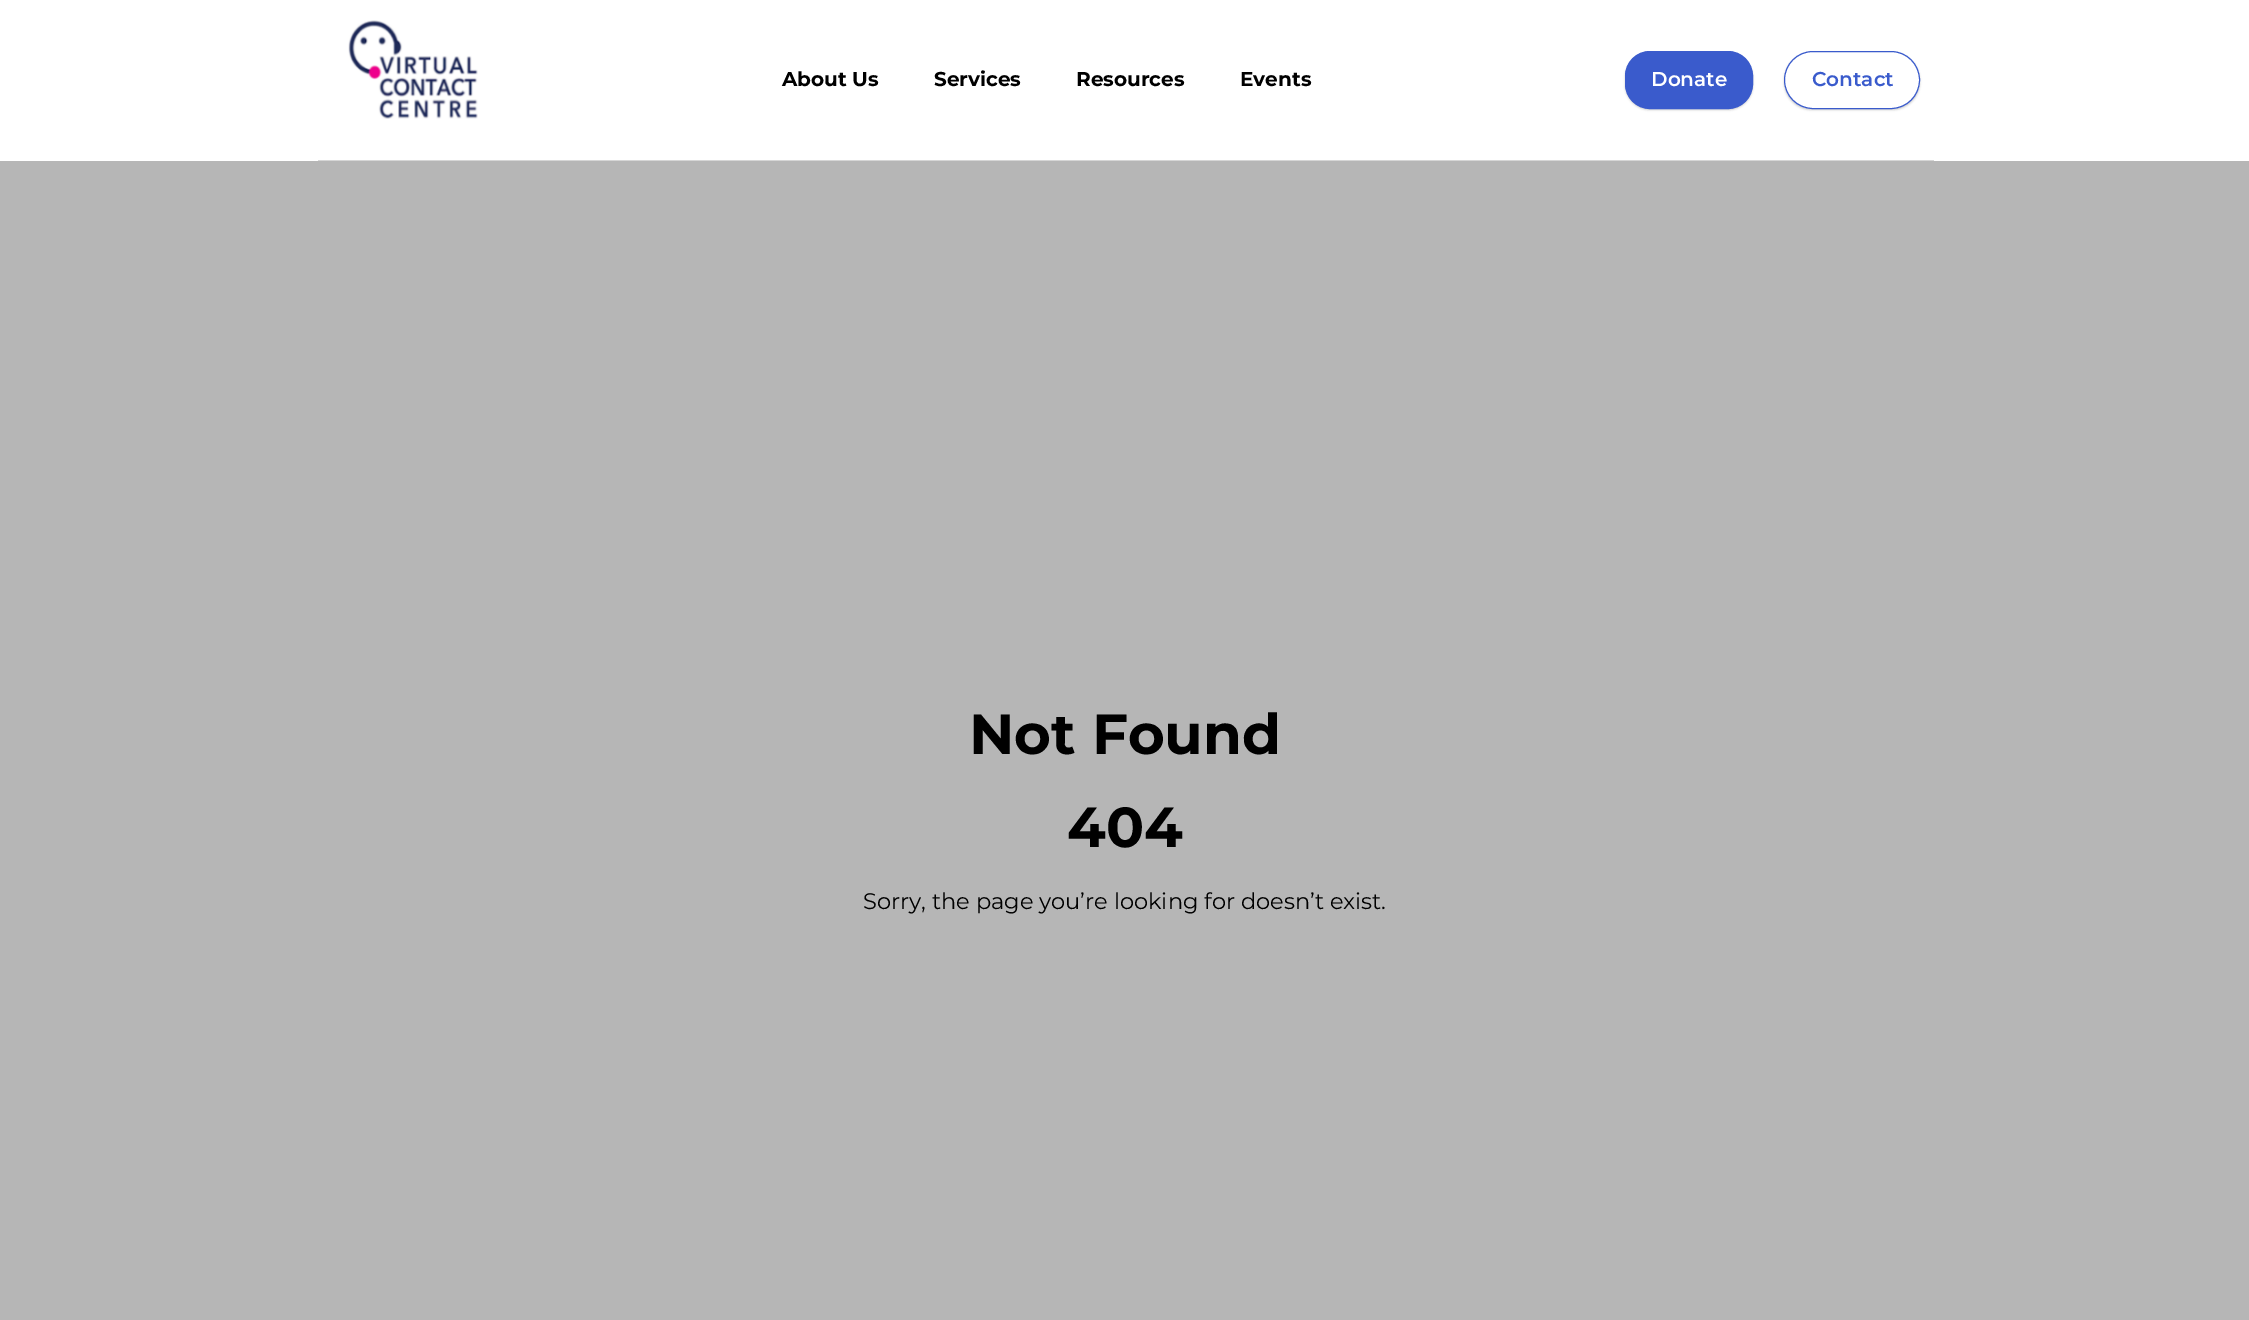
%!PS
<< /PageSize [2249 1320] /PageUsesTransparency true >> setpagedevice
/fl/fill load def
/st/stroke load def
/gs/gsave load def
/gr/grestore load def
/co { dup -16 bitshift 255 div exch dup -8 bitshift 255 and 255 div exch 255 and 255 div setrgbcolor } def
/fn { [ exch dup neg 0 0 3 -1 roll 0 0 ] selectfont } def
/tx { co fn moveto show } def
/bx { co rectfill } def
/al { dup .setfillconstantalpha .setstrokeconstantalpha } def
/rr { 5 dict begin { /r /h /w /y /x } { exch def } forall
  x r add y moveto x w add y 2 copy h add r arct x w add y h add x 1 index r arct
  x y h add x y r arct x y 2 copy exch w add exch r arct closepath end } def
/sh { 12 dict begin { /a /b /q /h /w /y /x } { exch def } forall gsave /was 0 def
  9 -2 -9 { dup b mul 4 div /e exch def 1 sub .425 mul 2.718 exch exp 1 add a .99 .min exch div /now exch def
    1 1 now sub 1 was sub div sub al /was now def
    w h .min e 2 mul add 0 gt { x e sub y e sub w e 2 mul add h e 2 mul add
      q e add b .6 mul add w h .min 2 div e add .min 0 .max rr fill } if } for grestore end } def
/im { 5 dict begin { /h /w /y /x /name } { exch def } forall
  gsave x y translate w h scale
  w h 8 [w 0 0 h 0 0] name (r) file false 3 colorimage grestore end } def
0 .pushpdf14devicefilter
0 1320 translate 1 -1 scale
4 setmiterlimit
0 0 2249 1320 16#FFFFFF bx
318 160 1616 1 16#D6D6D6 bx
(media/1.raw) 348 20 130 99 im
16#000000 co
1625 53 128 57 25 1 .2 sh
16#3A5BCC co
1625.5 51.5 127 57 24.5 rr gs fl gr
st
16#000000 co
1784 53 136 57 28.5 1 .2 sh
16#FFFFFF co
1784.5 51.5 135 57 28.5 rr gs fl gr
16#3A5BCC co
st
0 161 2249 1159 16#B6B6B6 bx
(About Us) 782 86 /Montserrat-Bold 20 16#000000 tx
(Services) 934 86 /Montserrat-Bold 20 16#000000 tx
(Resources) 1076 86 /Montserrat-Bold 20 16#000000 tx
(Events) 1240 86 /Montserrat-Bold 20 16#000000 tx
(Donate) 1651 86 /Montserrat-SemiBold 20 16#FFFFFF tx
(Contact) 1812 86 /Montserrat-SemiBold 20 16#3A5BCC tx
(Not Found) 969 754 /Montserrat-Bold 56.25 16#000000 tx
(404) 1067 847 /Montserrat-Bold 56.25 16#000000 tx
(Sorry, the page you’re looking for doesn’t exist.) 863 909 /Montserrat-Regular 22.5 16#000000 tx
.poppdf14devicefilter showpage
